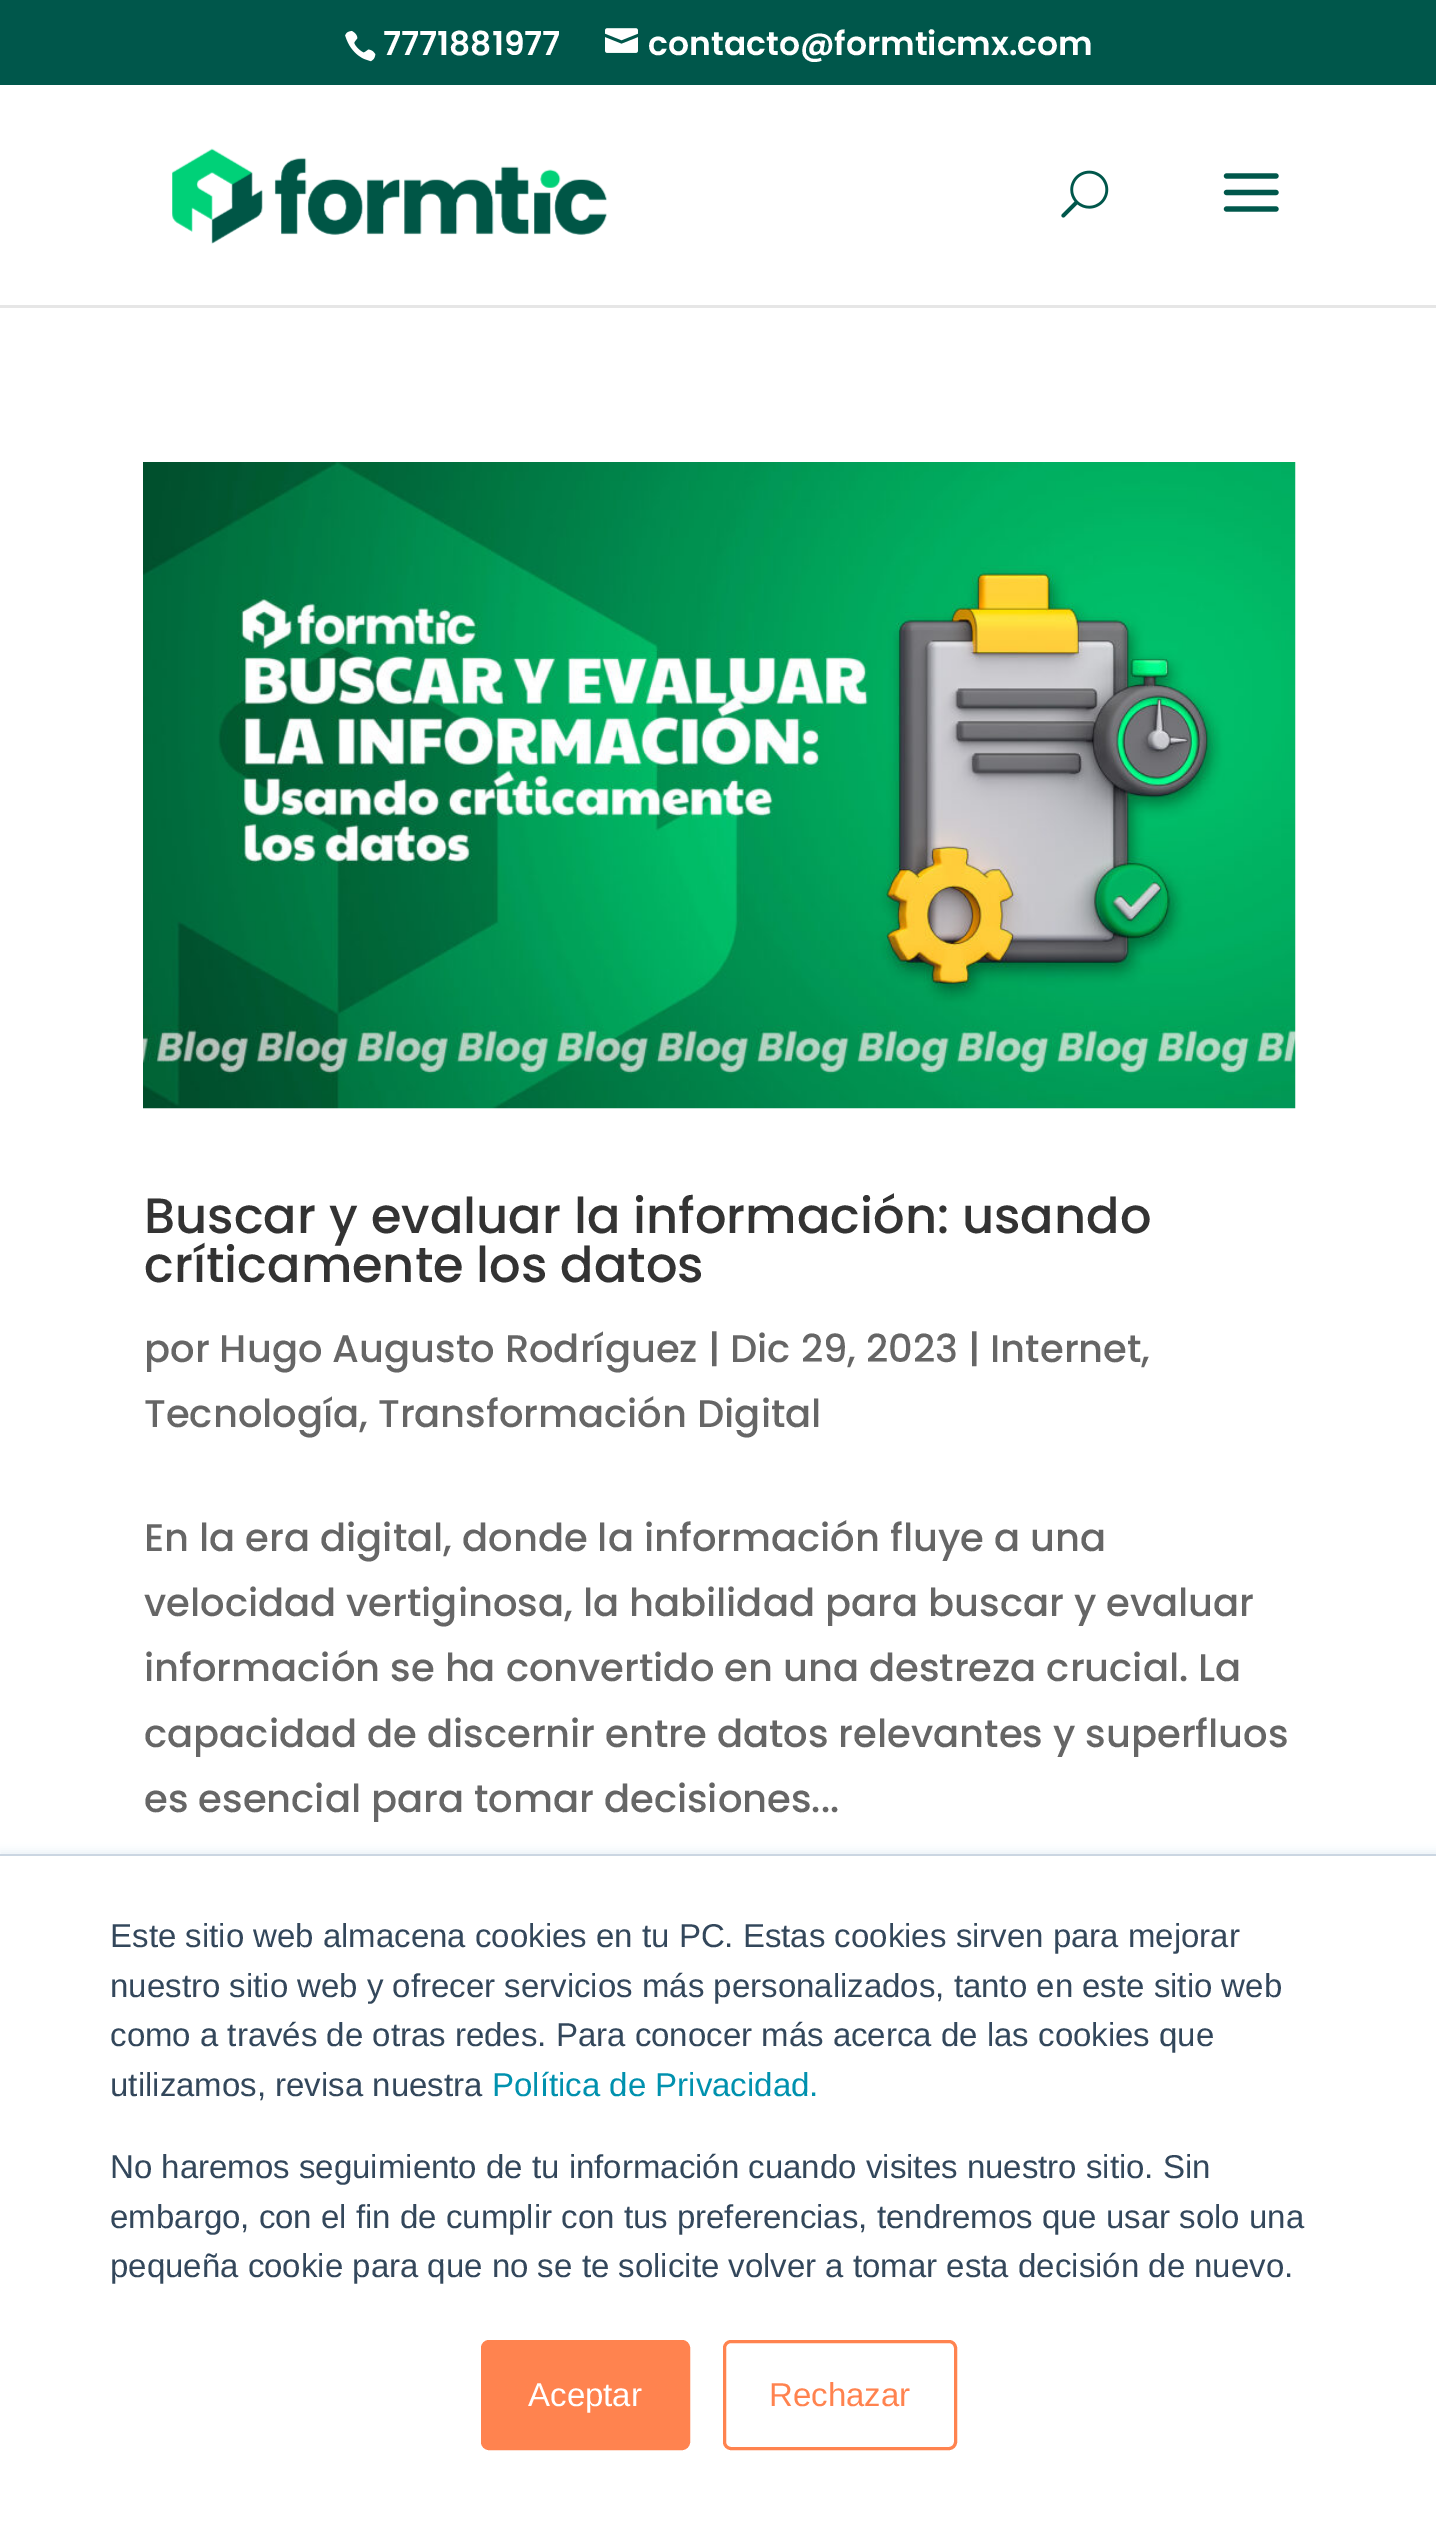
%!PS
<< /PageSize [1436 2521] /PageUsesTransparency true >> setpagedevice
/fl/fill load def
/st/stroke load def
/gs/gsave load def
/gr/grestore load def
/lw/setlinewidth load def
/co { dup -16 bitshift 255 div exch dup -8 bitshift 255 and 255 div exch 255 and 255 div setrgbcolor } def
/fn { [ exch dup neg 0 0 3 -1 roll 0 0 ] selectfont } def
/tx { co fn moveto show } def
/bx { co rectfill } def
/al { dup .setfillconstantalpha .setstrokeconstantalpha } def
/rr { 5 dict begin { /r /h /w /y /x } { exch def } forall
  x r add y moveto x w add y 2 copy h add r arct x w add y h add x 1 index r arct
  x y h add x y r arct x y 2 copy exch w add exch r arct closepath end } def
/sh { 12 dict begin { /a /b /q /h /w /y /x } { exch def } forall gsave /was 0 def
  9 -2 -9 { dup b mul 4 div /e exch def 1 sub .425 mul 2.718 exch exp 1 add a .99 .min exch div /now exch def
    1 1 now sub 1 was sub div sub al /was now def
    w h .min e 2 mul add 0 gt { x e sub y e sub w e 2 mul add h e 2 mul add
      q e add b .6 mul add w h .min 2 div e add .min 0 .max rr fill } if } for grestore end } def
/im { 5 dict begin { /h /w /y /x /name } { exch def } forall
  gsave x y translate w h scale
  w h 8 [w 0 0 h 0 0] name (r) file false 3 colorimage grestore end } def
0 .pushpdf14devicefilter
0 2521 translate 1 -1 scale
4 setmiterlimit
0 0 1436 2521 16#FFFFFF bx
0 0 1436 85 16#00574B bx
(media/1.raw) 345 30 31 32 im
(media/2.raw) 605 28 33 25 im
0 305 1436 3 16#E6E6E6 bx
(media/3.raw) 172 148 435 96 im
(media/4.raw) 1061 170 48 48 im
(media/5.raw) 1223 173 56 39 im
(media/6.raw) 143 462 1153 647 im
16#EAF0F6 co
0 1851 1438 668 0 4 1 sh
0 1854 1436 2 16#CBD6E2 bx
0 1856 1436 665 16#FFFFFF bx
16#FF834F co
482.5 2341.5 206 107 6.5 rr gs fl gr
3 lw
st
724.5 2341.5 231 107 6.5 rr st
(7771881977) 383 55 /Poppins-SemiBold 33 16#FFFFFF tx
(contacto@formticmx.com) 648 55 /Poppins-SemiBold 33 16#FFFFFF tx
(Buscar y evaluar la información: usando) 144 1233 /Poppins-Medium 49.5 16#333333 tx
(críticamente los datos) 144 1282 /Poppins-Medium 49.5 16#333333 tx
(por Hugo Augusto Rodríguez | Dic 29, 2023 | Internet,) 144 1362 /Poppins-Medium 38.5 16#666666 tx
(Tecnología, Transformación Digital) 144 1427 /Poppins-Medium 38.5 16#666666 tx
(En la era digital, donde la información fluye a una) 144 1551 /Poppins-Medium 38.5 16#666666 tx
(velocidad vertiginosa, la habilidad para buscar y evaluar) 144 1616 /Poppins-Medium 38.5 16#666666 tx
(información se ha convertido en una destreza crucial. La) 144 1681 /Poppins-Medium 38.5 16#666666 tx
(capacidad de discernir entre datos relevantes y superfluos) 144 1747 /Poppins-Medium 38.5 16#666666 tx
(es esencial para tomar decisiones...) 144 1812 /Poppins-Medium 38.5 16#666666 tx
(Este sitio web almacena cookies en tu PC. Estas cookies sirven para mejorar) 110 1947 /LiberationSans-Regular 33 16#33475B tx
(nuestro sitio web y ofrecer servicios más personalizados, tanto en este sitio web) 110 1997 /LiberationSans-Regular 33 16#33475B tx
(como a través de otras redes. Para conocer más acerca de las cookies que) 110 2046 /LiberationSans-Regular 33 16#33475B tx
(utilizamos, revisa nuestra) 110 2096 /LiberationSans-Regular 33 16#33475B tx
(Política de Privacidad.) 492 2096 /LiberationSans-Regular 33 16#0091AE tx
(No haremos seguimiento de tu información cuando visites nuestro sitio. Sin) 110 2178 /LiberationSans-Regular 33 16#33475B tx
(embargo, con el fin de cumplir con tus preferencias, tendremos que usar solo una) 110 2228 /LiberationSans-Regular 33 16#33475B tx
(pequeña cookie para que no se te solicite volver a tomar esta decisión de nuevo.) 110 2277 /LiberationSans-Regular 33 16#33475B tx
(Aceptar) 528 2406 /LiberationSans-Regular 33 16#FFFFFF tx
(Rechazar) 769 2406 /LiberationSans-Regular 33 16#FF834F tx
.poppdf14devicefilter showpage
